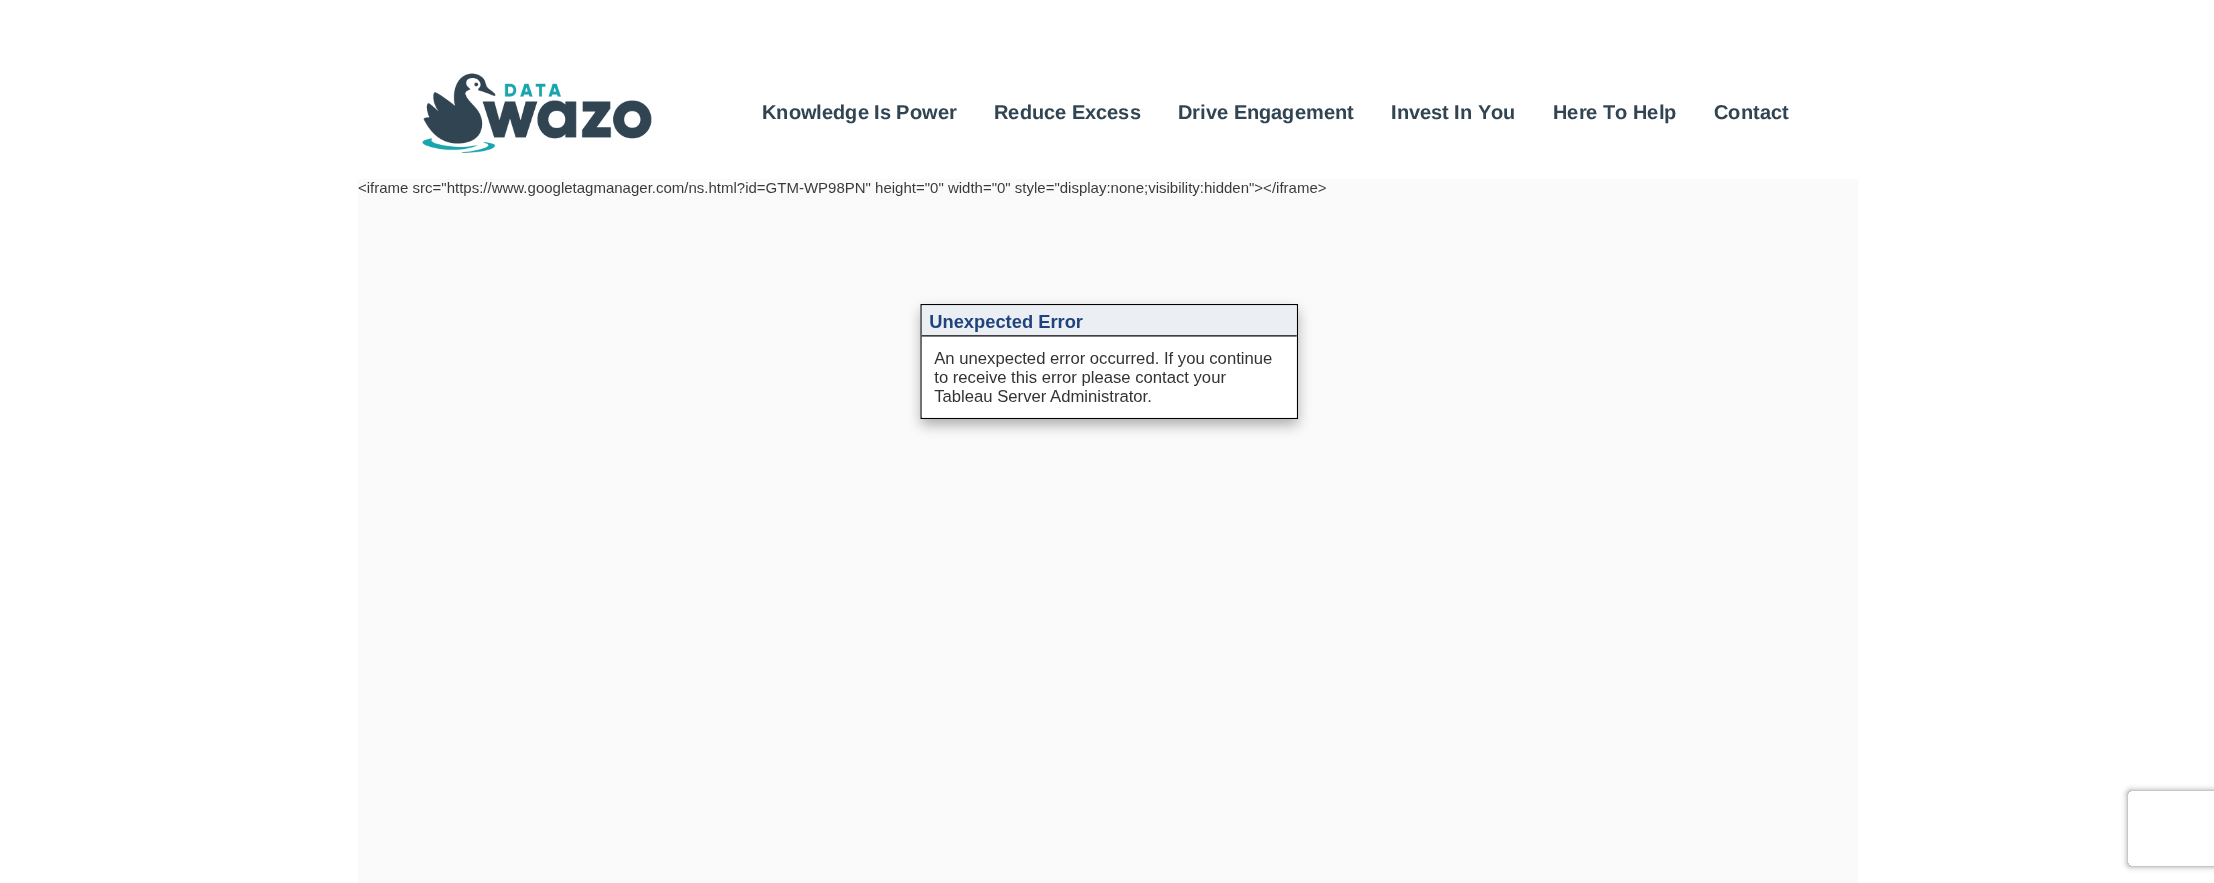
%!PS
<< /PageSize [2214 883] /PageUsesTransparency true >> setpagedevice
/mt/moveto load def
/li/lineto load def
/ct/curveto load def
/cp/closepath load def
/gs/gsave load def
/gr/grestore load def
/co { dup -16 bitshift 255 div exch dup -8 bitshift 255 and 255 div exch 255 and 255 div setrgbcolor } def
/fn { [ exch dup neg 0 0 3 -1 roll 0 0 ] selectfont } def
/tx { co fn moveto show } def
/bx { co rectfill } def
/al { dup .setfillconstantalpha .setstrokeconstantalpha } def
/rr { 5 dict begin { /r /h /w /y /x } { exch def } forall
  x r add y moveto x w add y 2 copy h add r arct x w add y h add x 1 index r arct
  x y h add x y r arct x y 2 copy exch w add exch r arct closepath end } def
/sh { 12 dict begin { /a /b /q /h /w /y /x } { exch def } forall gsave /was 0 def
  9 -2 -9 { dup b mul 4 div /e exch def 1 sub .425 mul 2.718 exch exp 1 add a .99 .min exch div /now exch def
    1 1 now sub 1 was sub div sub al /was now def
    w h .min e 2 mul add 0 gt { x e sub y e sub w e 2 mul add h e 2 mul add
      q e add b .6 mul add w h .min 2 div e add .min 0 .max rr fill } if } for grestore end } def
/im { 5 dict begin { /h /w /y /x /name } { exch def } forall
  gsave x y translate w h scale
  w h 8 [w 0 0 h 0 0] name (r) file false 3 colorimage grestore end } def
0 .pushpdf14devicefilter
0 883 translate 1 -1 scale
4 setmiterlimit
0 0 2214 883 16#FFFFFF bx
(media/1.raw) 422 73 230 80 im
(media/2.raw) 358 179 1500 704 im
gs
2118 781 mt 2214 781 li 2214 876 li 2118 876 li cp 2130.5 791 mt 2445.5 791 li 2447 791 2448 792 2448 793.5 ct 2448 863.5 li 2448 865 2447 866 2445.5 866 ct 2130.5 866 li 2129 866 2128 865 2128 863.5 ct 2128 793.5 li 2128 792 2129 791 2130.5 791 ct cp eoclip newpath
16#808080 co
2128 791 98 75 2.5 3 1 sh
gr
(Knowledge Is Power) 762 119 /LiberationSans-Bold 20 16#304452 tx
(Reduce Excess) 994 119 /LiberationSans-Bold 20 16#304452 tx
(Drive Engagement) 1178 119 /LiberationSans-Bold 20 16#304452 tx
(Invest In You) 1391 119 /LiberationSans-Bold 20 16#304452 tx
(Here To Help) 1553 119 /LiberationSans-Bold 20 16#304452 tx
(Contact) 1714 119 /LiberationSans-Bold 20 16#304452 tx
.poppdf14devicefilter showpage
